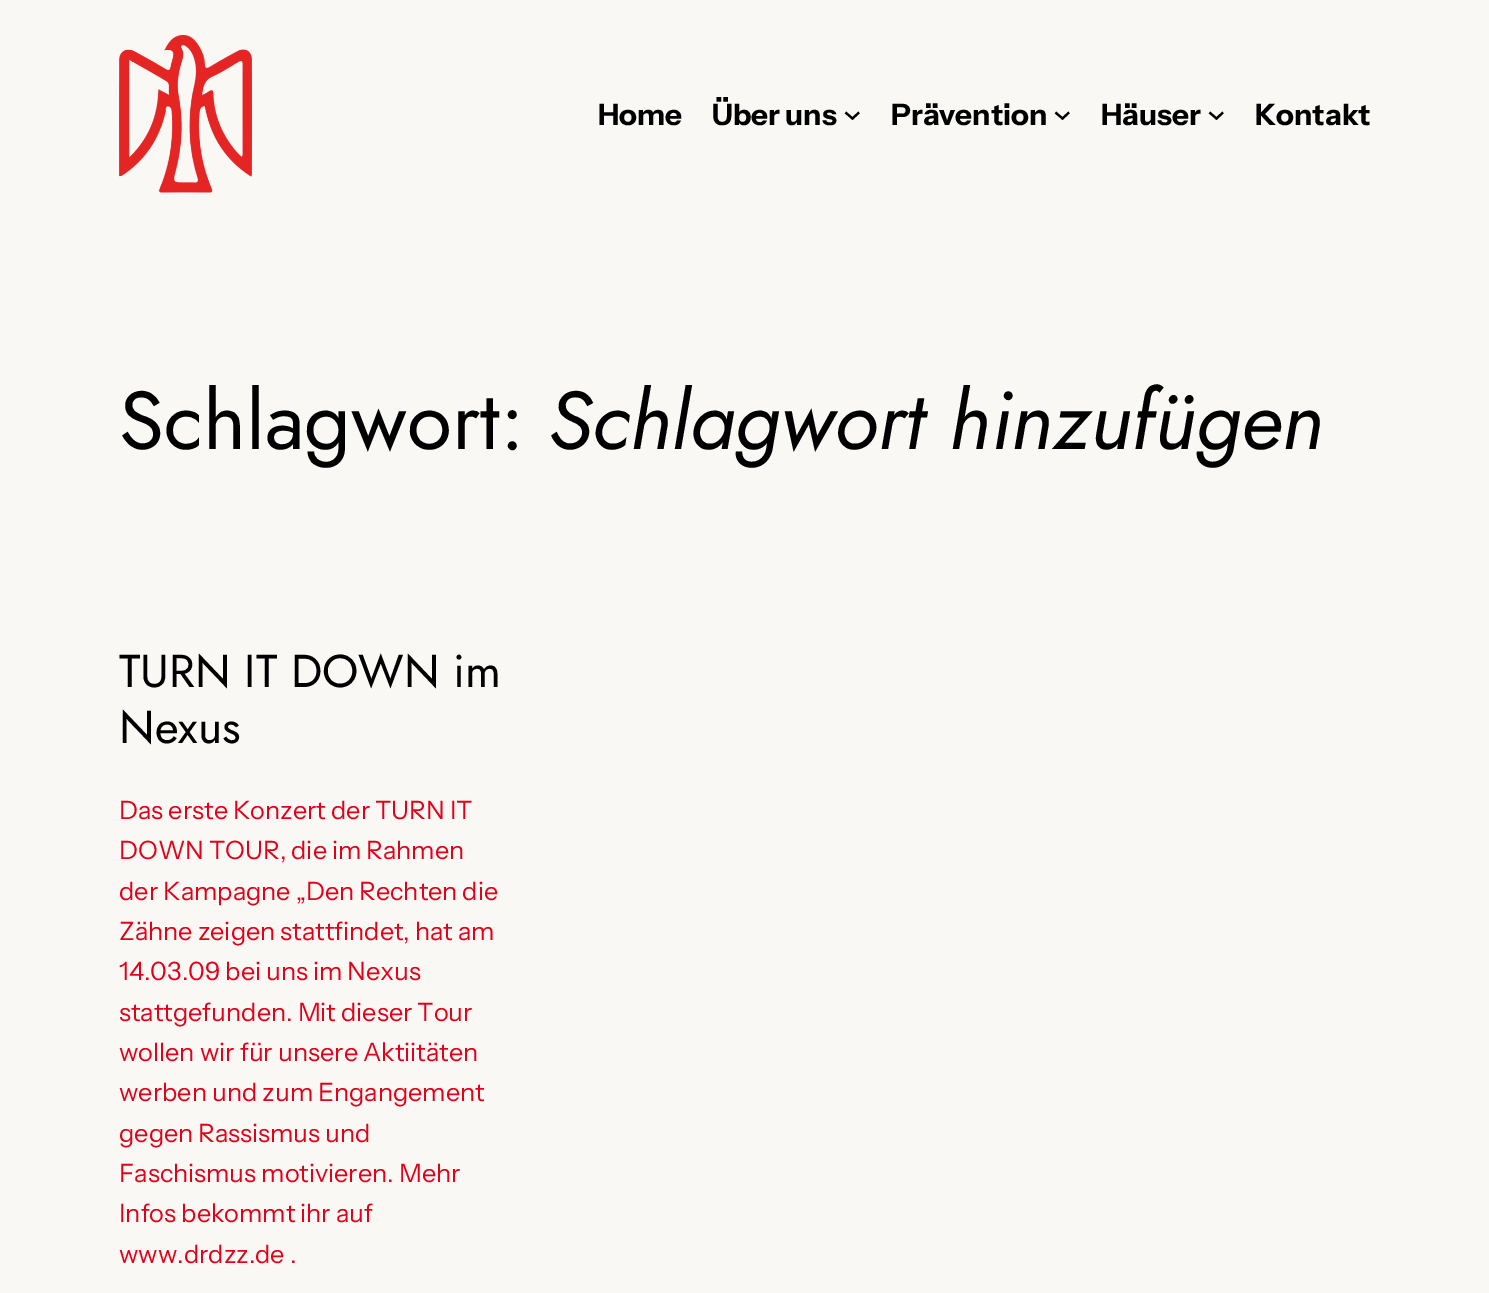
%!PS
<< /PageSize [1489 1293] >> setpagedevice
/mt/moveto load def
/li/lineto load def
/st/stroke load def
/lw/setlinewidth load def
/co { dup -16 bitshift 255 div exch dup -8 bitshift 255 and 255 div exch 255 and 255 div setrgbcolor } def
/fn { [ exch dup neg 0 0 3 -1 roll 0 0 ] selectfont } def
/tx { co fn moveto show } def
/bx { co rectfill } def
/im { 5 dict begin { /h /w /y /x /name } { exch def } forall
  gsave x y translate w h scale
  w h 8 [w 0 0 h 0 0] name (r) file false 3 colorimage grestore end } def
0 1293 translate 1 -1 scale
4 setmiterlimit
0 0 1489 1293 16#F9F8F5 bx
(media/1.raw) 119 35 133 158 im
16#000000 co
2.2 lw
845.5 112.5 mt 852.5 118.5 li 859 112.5 li st
1055.5 112.5 mt 1062.5 118.5 li 1069 112.5 li st
1209.5 112.5 mt 1216.5 118.5 li 1223 112.5 li st
(Home) 598 125 /InstrumentSans-Bold 29.5 16#000000 tx
(Über uns) 712 125 /InstrumentSans-Bold 29.5 16#000000 tx
(Prävention) 891 125 /InstrumentSans-Bold 29.5 16#000000 tx
(Häuser) 1101 125 /InstrumentSans-Bold 29.5 16#000000 tx
(Kontakt) 1255 125 /InstrumentSans-Bold 29.5 16#000000 tx
(Schlagwort:) 119 449 /Jost-Regular 82 16#000000 tx
(Schlagwort hinzufügen) 548 449 /Jost-Italic 82 16#000000 tx
(TURN IT DOWN im) 119 687 /Jost-Regular 46 16#000000 tx
(Nexus) 119 743 /Jost-Regular 46 16#000000 tx
(Das erste Konzert der TURN IT) 119 819 /InstrumentSans-Regular 25.25 16#E10119 tx
(DOWN TOUR, die im Rahmen) 119 859 /InstrumentSans-Regular 25.25 16#E10119 tx
(der Kampagne „Den Rechten die) 119 900 /InstrumentSans-Regular 25.25 16#E10119 tx
(Zähne zeigen stattfindet, hat am) 119 940 /InstrumentSans-Regular 25.25 16#E10119 tx
(14.03.09 bei uns im Nexus) 119 980 /InstrumentSans-Regular 25.25 16#E10119 tx
(stattgefunden. Mit dieser Tour) 119 1021 /InstrumentSans-Regular 25.25 16#E10119 tx
(wollen wir für unsere Aktiitäten) 119 1061 /InstrumentSans-Regular 25.25 16#E10119 tx
(werben und zum Engangement) 119 1101 /InstrumentSans-Regular 25.25 16#E10119 tx
(gegen Rassismus und) 119 1142 /InstrumentSans-Regular 25.25 16#E10119 tx
(Faschismus motivieren. Mehr) 119 1182 /InstrumentSans-Regular 25.25 16#E10119 tx
(Infos bekommt ihr auf) 119 1222 /InstrumentSans-Regular 25.25 16#E10119 tx
(www.drdzz.de .) 119 1263 /InstrumentSans-Regular 25.25 16#E10119 tx
showpage
